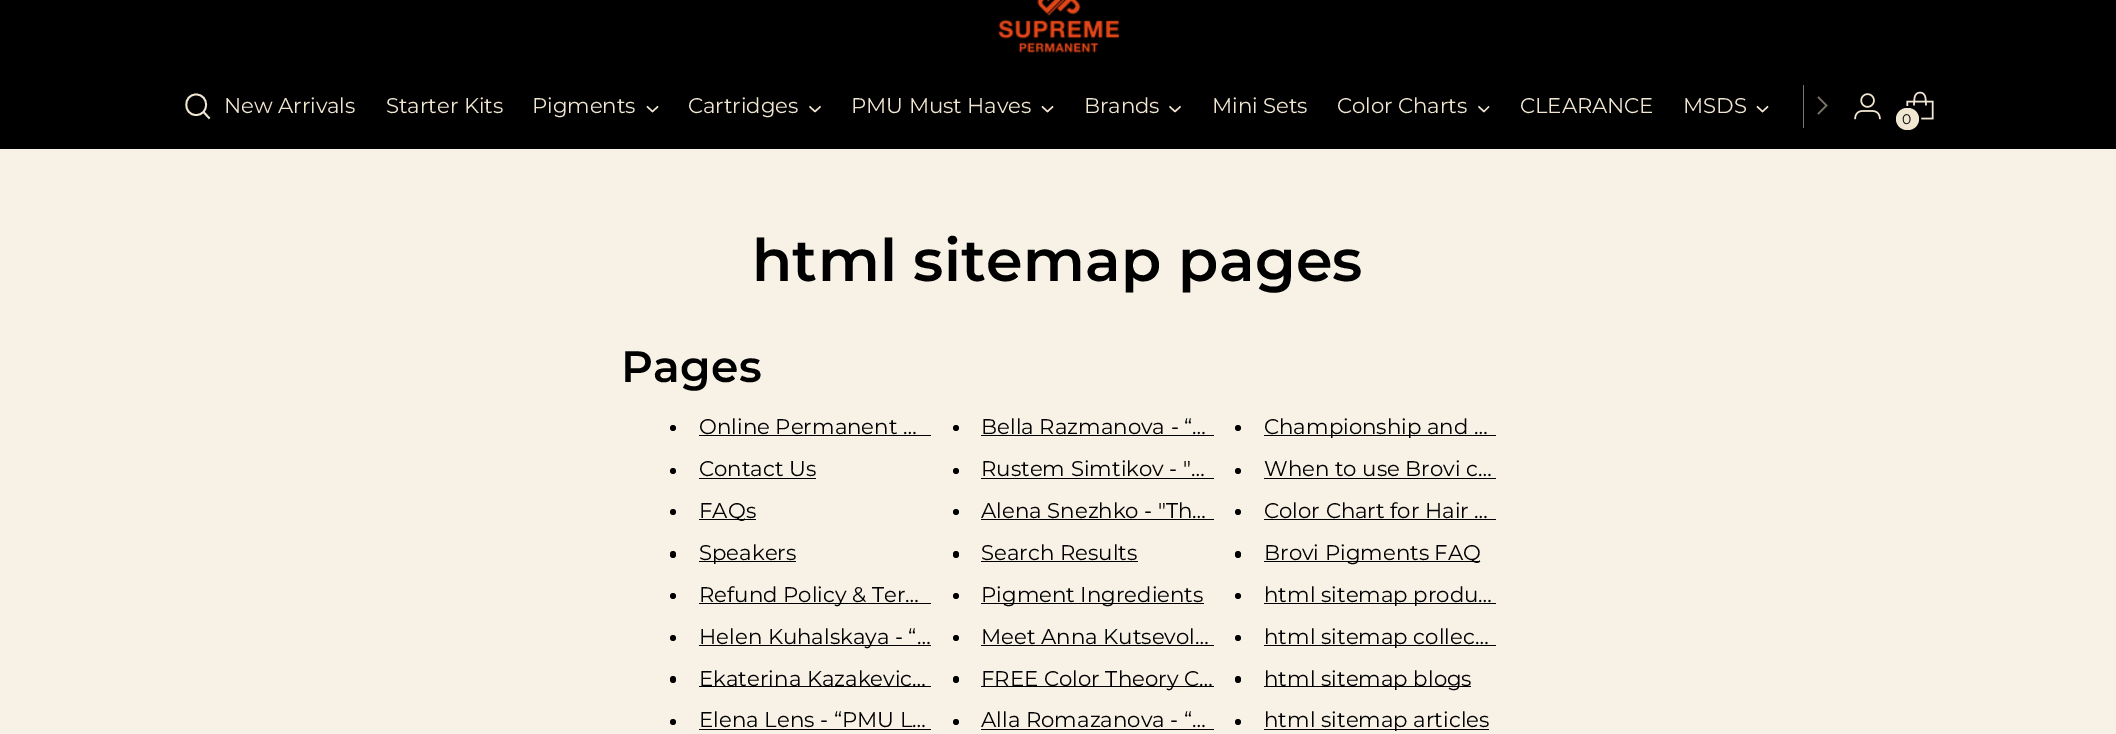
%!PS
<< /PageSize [2116 734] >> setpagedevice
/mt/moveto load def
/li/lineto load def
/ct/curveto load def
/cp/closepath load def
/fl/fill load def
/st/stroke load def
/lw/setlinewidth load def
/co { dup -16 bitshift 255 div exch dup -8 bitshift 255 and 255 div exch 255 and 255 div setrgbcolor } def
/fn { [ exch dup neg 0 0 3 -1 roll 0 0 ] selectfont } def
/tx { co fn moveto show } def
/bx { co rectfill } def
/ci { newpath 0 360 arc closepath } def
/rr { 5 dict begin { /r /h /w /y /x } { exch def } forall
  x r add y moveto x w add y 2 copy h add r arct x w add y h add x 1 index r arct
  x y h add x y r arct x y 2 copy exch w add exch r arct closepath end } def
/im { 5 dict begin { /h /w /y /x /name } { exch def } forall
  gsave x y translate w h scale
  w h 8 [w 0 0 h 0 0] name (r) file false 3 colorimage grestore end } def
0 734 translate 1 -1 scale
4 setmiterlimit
0 0 2116 734 16#F7F1E6 bx
0 0 2116 149 16#000000 bx
(media/1.raw) 998 0 122 53 im
16#F1E6D2 co
1.8 lw
1 setlinecap
196 115 mt 209.5 115 209.5 94.5 196 94.5 ct 183 94.5 183 115 196 115 ct cp st
0 setlinecap
203.5 112 mt 209.5 118.5 li st
1.4 lw
647 106.5 mt 652.5 111.5 li 658 106.5 li st
809.5 106.5 mt 815 111.5 li 820.5 106.5 li st
1042 106.5 mt 1047.5 111.5 li 1053 106.5 li st
1169.5 106.5 mt 1175 111.5 li 1180.5 106.5 li st
1478.5 106.5 mt 1484 111.5 li 1489 106.5 li st
1757 106.5 mt 1762.5 111.5 li 1768 106.5 li st
1803 85 1 43 16#797369 bx
1.7 lw
1818 114 mt 1826.5 105.5 li 1818 97 li st
(media/2.raw) 1854 93 27 27 im
(media/3.raw) 1906 91 28 29 im
16#000000 co
2 lw
1896 107 24 25 12 rr st
16#F1E6D2 co
1896 108 23 22 11 rr fl
16#000000 co
673 428 3 ci fl
699 435 232 1 16#000000 bx
956 428 3 ci fl
981 435 233 1 16#000000 bx
1238 428 3 ci fl
1264 435 232 1 16#000000 bx
673 471 3 ci fl
699 478 117 1 16#000000 bx
956 471 3 ci fl
981 478 233 1 16#000000 bx
1238 471 3 ci fl
1264 478 232 1 16#000000 bx
673 512 3 ci fl
699 519 57 1 16#000000 bx
956 512 3 ci fl
981 519 233 1 16#000000 bx
1238 512 3 ci fl
1264 519 232 1 16#000000 bx
670 551 6 7 3 rr fl
699 561 97 1 16#000000 bx
953 551 6 7 3 rr fl
981 561 157 1 16#000000 bx
1235 551 6 7 3 rr fl
1264 561 216 1 16#000000 bx
673 596 3 ci fl
699 603 232 1 16#000000 bx
956 596 3 ci fl
981 603 223 1 16#000000 bx
1238 596 3 ci fl
1264 603 232 1 16#000000 bx
673 638 3 ci fl
699 645 232 1 16#000000 bx
956 638 3 ci fl
981 645 233 1 16#000000 bx
1238 638 3 ci fl
1264 645 232 1 16#000000 bx
670 676 6 7 3 rr fl
699 686 232 1 16#000000 bx
953 676 6 7 3 rr fl
981 686 233 1 16#000000 bx
1235 676 6 7 3 rr fl
1264 686 207 1 16#000000 bx
673 722 3 ci fl
699 729 232 1 16#000000 bx
956 722 3 ci fl
981 729 233 1 16#000000 bx
1238 722 3 ci fl
1264 729 225 1 16#000000 bx
/Montserrat-Regular 21.25 fn
16#F1E6D2 co
224 113 mt -.1 0 (New Arrivals) ashow
386 113 mt -.1 0 (Starter Kits) ashow
532 113 mt -.1 0 (Pigments) ashow
688 113 mt -.1 0 (Cartridges) ashow
851 113 mt -.1 0 (PMU Must Haves) ashow
1084 113 mt -.1 0 (Brands) ashow
1212 113 mt -.1 0 (Mini Sets) ashow
1337 113 mt -.1 0 (Color Charts) ashow
1520 113 mt -.1 0 (CLEARANCE) ashow
1683 113 mt -.1 0 (MSDS) ashow
(0) 1902 124 /Montserrat-Regular 14 16#000000 tx
/Montserrat-SemiBold 58.75 fn
752 281 mt .25 0 (html sitemap pages) ashow
/Montserrat-SemiBold 44 fn
621 382 mt .25 0 (Pages) ashow
(Online Permanent …) 699 434 /Montserrat-Regular 21.25 16#000000 tx
(Bella Razmanova - “…) 981 434 /Montserrat-Regular 21.25 16#000000 tx
(Championship and …) 1264 434 /Montserrat-Regular 21.25 16#000000 tx
(Contact Us) 699 476 /Montserrat-Regular 21.25 16#000000 tx
(Rustem Simtikov - "…) 981 476 /Montserrat-Regular 21.25 16#000000 tx
(When to use Brovi c…) 1264 476 /Montserrat-Regular 21.25 16#000000 tx
(FAQs) 699 518 /Montserrat-Regular 21.25 16#000000 tx
(Alena Snezhko - "Th…) 981 518 /Montserrat-Regular 21.25 16#000000 tx
(Color Chart for Hair …) 1264 518 /Montserrat-Regular 21.25 16#000000 tx
(Speakers) 699 560 /Montserrat-Regular 21.25 16#000000 tx
(Search Results) 981 560 /Montserrat-Regular 21.25 16#000000 tx
(Brovi Pigments FAQ) 1264 560 /Montserrat-Regular 21.25 16#000000 tx
(Refund Policy & Ter…) 699 602 /Montserrat-Regular 21.25 16#000000 tx
(Pigment Ingredients) 981 602 /Montserrat-Regular 21.25 16#000000 tx
(html sitemap produ…) 1264 602 /Montserrat-Regular 21.25 16#000000 tx
(Helen Kuhalskaya - “…) 699 644 /Montserrat-Regular 21.25 16#000000 tx
(Meet Anna Kutsevol…) 981 644 /Montserrat-Regular 21.25 16#000000 tx
(html sitemap collec…) 1264 644 /Montserrat-Regular 21.25 16#000000 tx
(Ekaterina Kazakevic…) 699 686 /Montserrat-Regular 21.25 16#000000 tx
(FREE Color Theory C…) 981 686 /Montserrat-Regular 21.25 16#000000 tx
(html sitemap blogs) 1264 686 /Montserrat-Regular 21.25 16#000000 tx
(Elena Lens - “PMU L…) 699 727 /Montserrat-Regular 21.25 16#000000 tx
(Alla Romazanova - “…) 981 727 /Montserrat-Regular 21.25 16#000000 tx
(html sitemap articles) 1264 727 /Montserrat-Regular 21.25 16#000000 tx
showpage
